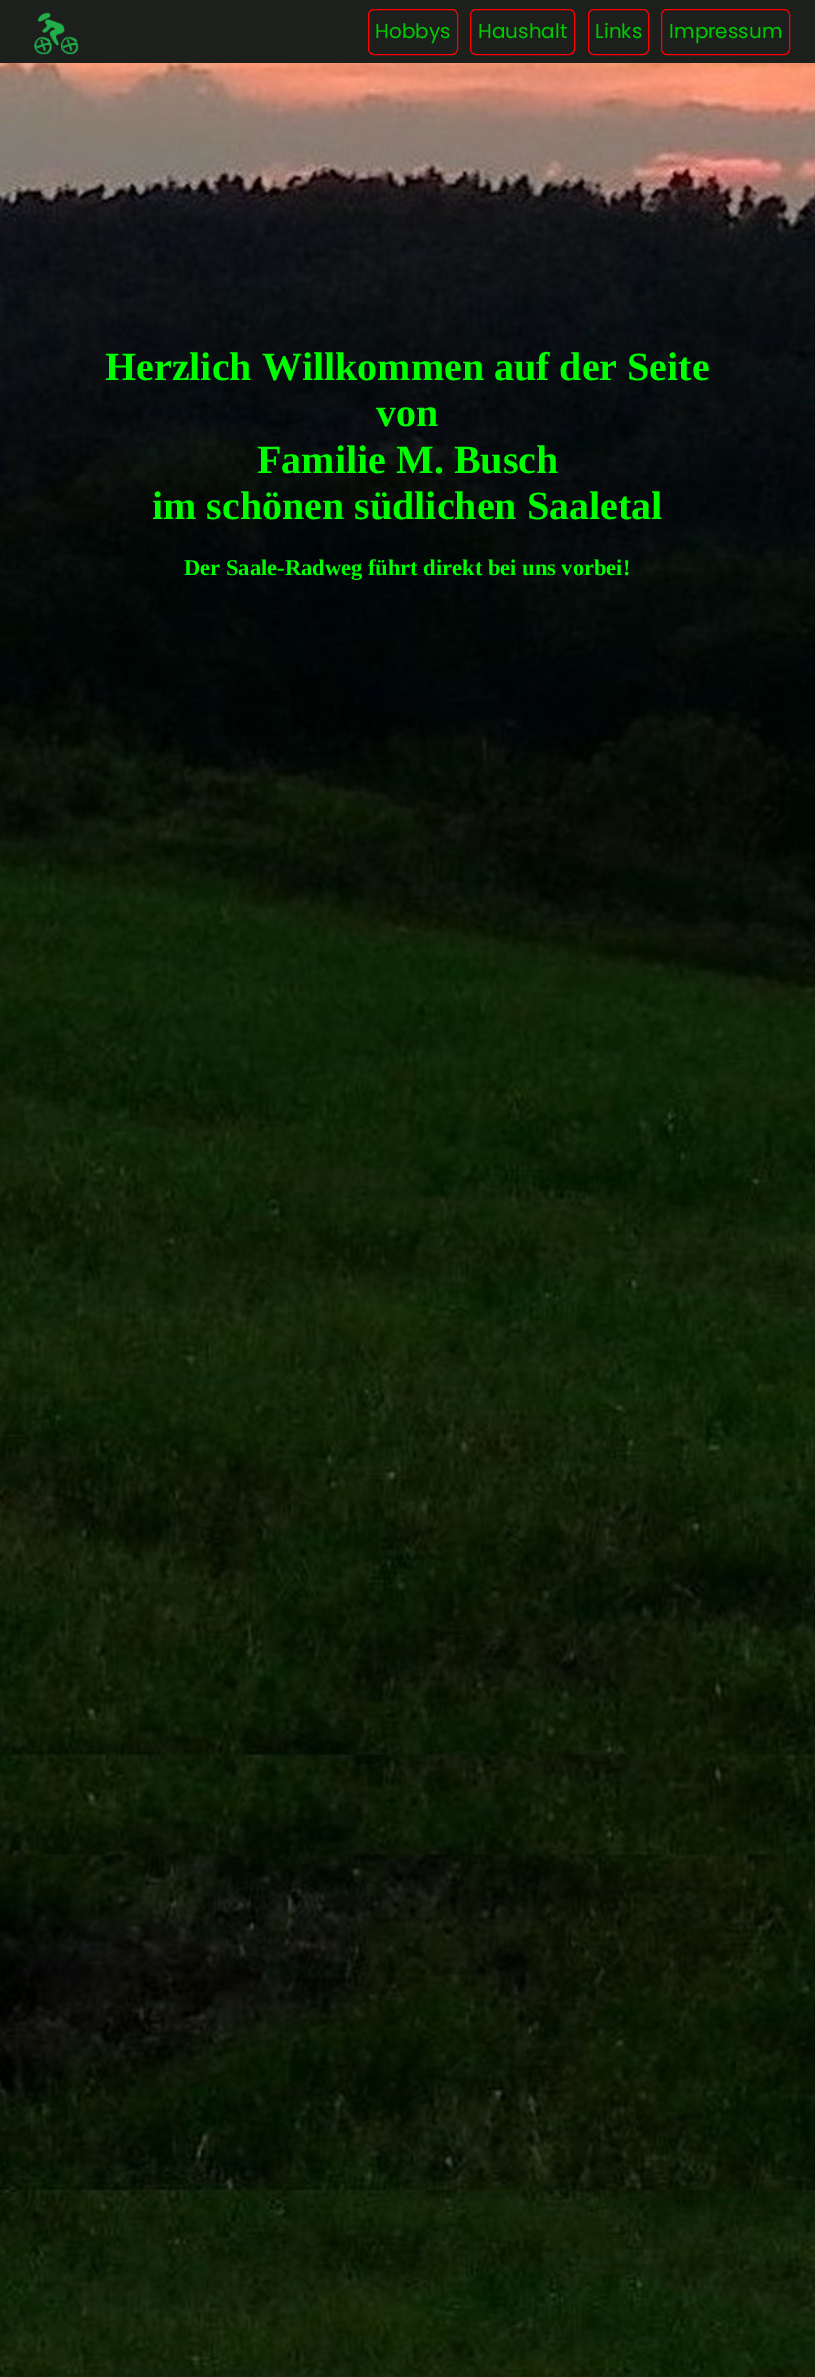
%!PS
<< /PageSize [815 2377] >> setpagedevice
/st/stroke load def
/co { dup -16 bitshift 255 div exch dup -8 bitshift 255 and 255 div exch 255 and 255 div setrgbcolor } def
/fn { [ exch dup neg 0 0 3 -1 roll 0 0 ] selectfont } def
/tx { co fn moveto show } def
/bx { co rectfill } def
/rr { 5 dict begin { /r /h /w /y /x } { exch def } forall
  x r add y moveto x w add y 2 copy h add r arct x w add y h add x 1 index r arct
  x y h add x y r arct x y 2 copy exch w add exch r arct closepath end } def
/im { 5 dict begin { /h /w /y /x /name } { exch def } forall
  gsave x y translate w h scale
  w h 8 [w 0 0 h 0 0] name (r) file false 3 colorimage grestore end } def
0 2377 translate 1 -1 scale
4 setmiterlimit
0 0 815 2377 16#FFFFFF bx
(media/1.raw) 0 63 815 2314 im
0 0 815 63 16#1D1F1D bx
(media/2.raw) 34 12 45 43 im
16#FF0000 co
368.5 9.5 89 45 5.5 rr st
470.5 9.5 104 45 5.5 rr st
588.5 9.5 60 45 5.5 rr st
661.5 9.5 128 45 5.5 rr st
(Hobbys) 375 38 /Poppins-Regular 20 16#00CC00 tx
(Haushalt) 478 38 /Poppins-Regular 20 16#00CC00 tx
(Links) 595 38 /Poppins-Regular 20 16#00CC00 tx
(Impressum) 669 38 /Poppins-Regular 20 16#00CC00 tx
(Herzlich Willkommen auf der Seite) 105 380 /LiberationSerif-Bold 40 16#00FF00 tx
(von) 376 426 /LiberationSerif-Bold 40 16#00FF00 tx
(Familie M. Busch) 257 473 /LiberationSerif-Bold 40 16#00FF00 tx
(im schönen südlichen Saaletal) 152 519 /LiberationSerif-Bold 40 16#00FF00 tx
(Der Saale-Radweg führt direkt bei uns vorbei!) 184 575 /LiberationSerif-Bold 22.5 16#00FF00 tx
showpage
